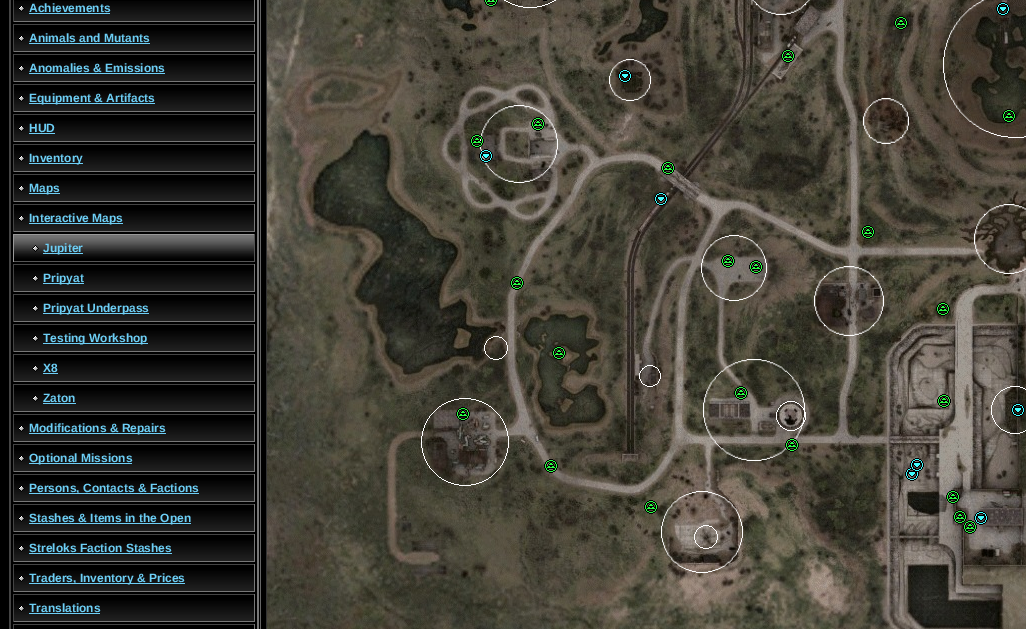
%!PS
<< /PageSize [1026 629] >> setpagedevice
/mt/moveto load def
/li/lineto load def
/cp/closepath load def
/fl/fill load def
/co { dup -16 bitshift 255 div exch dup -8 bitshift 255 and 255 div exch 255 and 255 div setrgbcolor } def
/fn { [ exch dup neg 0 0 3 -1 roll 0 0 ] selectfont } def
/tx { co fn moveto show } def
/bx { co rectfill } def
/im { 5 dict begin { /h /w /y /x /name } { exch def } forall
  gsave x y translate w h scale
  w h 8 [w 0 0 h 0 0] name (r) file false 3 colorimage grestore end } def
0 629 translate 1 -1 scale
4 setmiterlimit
0 0 1026 629 16#000000 bx
16#777777 co
259 -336 mt 259 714 li 257 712 li 257 -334 li cp fl
16#444444 co
9 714 mt 9 -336 li 11 -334 li 11 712 li cp fl
(media/1.raw) 14 1 240 20 im
254 0 1 22 16#777777 bx
13 21 242 1 16#777777 bx
13 0 1 22 16#444444 bx
(media/2.raw) 18 5 7 7 im
29 13 81 1 16#6DCFF6 bx
(media/3.raw) 14 25 240 26 im
13 24 242 1 16#444444 bx
254 24 1 28 16#777777 bx
13 51 242 1 16#777777 bx
13 24 1 28 16#444444 bx
(media/2.raw) 18 35 7 7 im
29 43 121 1 16#6DCFF6 bx
(media/3.raw) 14 55 240 26 im
13 54 242 1 16#444444 bx
254 54 1 28 16#777777 bx
13 81 242 1 16#777777 bx
13 54 1 28 16#444444 bx
(media/2.raw) 18 65 7 7 im
29 73 136 1 16#6DCFF6 bx
(media/3.raw) 14 85 240 26 im
13 84 242 1 16#444444 bx
254 84 1 28 16#777777 bx
13 111 242 1 16#777777 bx
13 84 1 28 16#444444 bx
(media/2.raw) 18 95 7 7 im
29 103 126 1 16#6DCFF6 bx
(media/3.raw) 14 115 240 26 im
13 114 242 1 16#444444 bx
254 114 1 28 16#777777 bx
13 141 242 1 16#777777 bx
13 114 1 28 16#444444 bx
(media/2.raw) 18 125 7 7 im
29 133 26 1 16#6DCFF6 bx
(media/3.raw) 14 145 240 26 im
13 144 242 1 16#444444 bx
254 144 1 28 16#777777 bx
13 171 242 1 16#777777 bx
13 144 1 28 16#444444 bx
(media/2.raw) 18 155 7 7 im
29 163 54 1 16#6DCFF6 bx
(media/3.raw) 14 175 240 26 im
13 174 242 1 16#444444 bx
254 174 1 28 16#777777 bx
13 201 242 1 16#777777 bx
13 174 1 28 16#444444 bx
(media/2.raw) 18 185 7 7 im
29 193 31 1 16#6DCFF6 bx
(media/3.raw) 14 205 240 26 im
13 204 242 1 16#444444 bx
254 204 1 28 16#777777 bx
13 231 242 1 16#777777 bx
13 204 1 28 16#444444 bx
(media/2.raw) 18 215 7 7 im
29 223 94 1 16#6DCFF6 bx
(media/4.raw) 14 235 240 26 im
13 234 242 1 16#999999 bx
254 234 1 28 16#555555 bx
13 261 242 1 16#555555 bx
13 234 1 28 16#999999 bx
(media/5.raw) 32 245 7 7 im
43 253 40 1 16#6DCFF6 bx
(media/3.raw) 14 265 240 26 im
13 264 242 1 16#444444 bx
254 264 1 28 16#777777 bx
13 291 242 1 16#777777 bx
13 264 1 28 16#444444 bx
(media/2.raw) 32 275 7 7 im
43 283 41 1 16#6DCFF6 bx
(media/3.raw) 14 295 240 26 im
13 294 242 1 16#444444 bx
254 294 1 28 16#777777 bx
13 321 242 1 16#777777 bx
13 294 1 28 16#444444 bx
(media/2.raw) 32 305 7 7 im
43 313 106 1 16#6DCFF6 bx
(media/3.raw) 14 325 240 26 im
13 324 242 1 16#444444 bx
254 324 1 28 16#777777 bx
13 351 242 1 16#777777 bx
13 324 1 28 16#444444 bx
(media/2.raw) 32 335 7 7 im
43 343 105 1 16#6DCFF6 bx
(media/3.raw) 14 355 240 26 im
13 354 242 1 16#444444 bx
254 354 1 28 16#777777 bx
13 381 242 1 16#777777 bx
13 354 1 28 16#444444 bx
(media/2.raw) 32 365 7 7 im
43 373 15 1 16#6DCFF6 bx
(media/3.raw) 14 385 240 26 im
13 384 242 1 16#444444 bx
254 384 1 28 16#777777 bx
13 411 242 1 16#777777 bx
13 384 1 28 16#444444 bx
(media/2.raw) 32 395 7 7 im
43 403 33 1 16#6DCFF6 bx
(media/3.raw) 14 415 240 26 im
13 414 242 1 16#444444 bx
254 414 1 28 16#777777 bx
13 441 242 1 16#777777 bx
13 414 1 28 16#444444 bx
(media/2.raw) 18 425 7 7 im
29 433 137 1 16#6DCFF6 bx
(media/3.raw) 14 445 240 26 im
13 444 242 1 16#444444 bx
254 444 1 28 16#777777 bx
13 471 242 1 16#777777 bx
13 444 1 28 16#444444 bx
(media/2.raw) 18 455 7 7 im
29 463 103 1 16#6DCFF6 bx
(media/3.raw) 14 475 240 26 im
13 474 242 1 16#444444 bx
254 474 1 28 16#777777 bx
13 501 242 1 16#777777 bx
13 474 1 28 16#444444 bx
(media/2.raw) 18 485 7 7 im
29 493 170 1 16#6DCFF6 bx
(media/3.raw) 14 505 240 26 im
13 504 242 1 16#444444 bx
254 504 1 28 16#777777 bx
13 531 242 1 16#777777 bx
13 504 1 28 16#444444 bx
(media/2.raw) 18 515 7 7 im
29 523 162 1 16#6DCFF6 bx
(media/3.raw) 14 535 240 26 im
13 534 242 1 16#444444 bx
254 534 1 28 16#777777 bx
13 561 242 1 16#777777 bx
13 534 1 28 16#444444 bx
(media/2.raw) 18 545 7 7 im
29 553 143 1 16#6DCFF6 bx
(media/3.raw) 14 565 240 26 im
13 564 242 1 16#444444 bx
254 564 1 28 16#777777 bx
13 591 242 1 16#777777 bx
13 564 1 28 16#444444 bx
(media/2.raw) 18 575 7 7 im
29 583 156 1 16#6DCFF6 bx
(media/3.raw) 14 595 240 26 im
13 594 242 1 16#444444 bx
254 594 1 28 16#777777 bx
13 621 242 1 16#777777 bx
13 594 1 28 16#444444 bx
(media/2.raw) 18 605 7 7 im
29 613 71 1 16#6DCFF6 bx
13 624 242 1 16#444444 bx
254 624 1 5 16#777777 bx
13 624 1 5 16#444444 bx
260 0 1 629 16#666666 bx
16#333333 co
266.5 -.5 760 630 rectstroke
(media/6.raw) 267 0 759 629 im
(media/7.raw) 484 0 14 7 im
(media/8.raw) 504 0 52 8 im
543 0 4 1 16#000000 bx
(media/9.raw) 752 0 58 15 im
(media/10.raw) 943 0 83 138 im
(media/11.raw) 996 2 14 14 im
(media/12.raw) 894 16 14 14 im
(media/13.raw) 781 49 14 14 im
(media/14.raw) 609 59 42 42 im
(media/15.raw) 618 69 14 14 im
(media/16.raw) 480 105 78 78 im
(media/17.raw) 863 98 46 46 im
(media/18.raw) 1002 109 14 14 im
(media/19.raw) 531 117 14 14 im
(media/20.raw) 470 134 14 14 im
(media/21.raw) 479 149 14 14 im
(media/22.raw) 661 161 14 14 im
(media/23.raw) 654 192 14 14 im
(media/24.raw) 861 225 14 14 im
(media/25.raw) 974 204 52 70 im
(media/26.raw) 701 235 66 66 im
(media/27.raw) 510 276 14 14 im
(media/28.raw) 721 254 14 14 im
(media/29.raw) 749 260 14 14 im
(media/30.raw) 814 266 70 70 im
(media/31.raw) 936 302 14 14 im
(media/32.raw) 484 336 24 24 im
(media/33.raw) 552 346 14 14 im
(media/34.raw) 639 365 22 22 im
(media/35.raw) 703 359 102 102 im
(media/36.raw) 421 398 88 88 im
(media/37.raw) 734 386 14 14 im
(media/38.raw) 776 401 30 30 im
(media/39.raw) 937 394 14 14 im
(media/40.raw) 991 386 35 48 im
(media/41.raw) 456 407 14 14 im
(media/42.raw) 1011 403 14 14 im
(media/43.raw) 785 438 14 14 im
(media/44.raw) 544 459 14 14 im
(media/46.raw) 905 467 14 14 im
(media/45.raw) 910 458 14 14 im
(media/47.raw) 644 500 14 14 im
(media/48.raw) 661 491 82 82 im
(media/49.raw) 946 490 14 14 im
(media/50.raw) 953 510 14 14 im
(media/51.raw) 974 511 14 14 im
(media/52.raw) 694 525 24 24 im
(media/53.raw) 963 520 14 14 im
(Achievements) 29 12 /LiberationSans-Bold 12 16#6DCFF6 tx
(Animals and Mutants) 29 42 /LiberationSans-Bold 12 16#6DCFF6 tx
(Anomalies & Emissions) 29 72 /LiberationSans-Bold 12 16#6DCFF6 tx
(Equipment & Artifacts) 29 102 /LiberationSans-Bold 12 16#6DCFF6 tx
(HUD) 29 132 /LiberationSans-Bold 12 16#6DCFF6 tx
(Inventory) 29 162 /LiberationSans-Bold 12 16#6DCFF6 tx
(Maps) 29 192 /LiberationSans-Bold 12 16#6DCFF6 tx
(Interactive Maps) 29 222 /LiberationSans-Bold 12 16#6DCFF6 tx
(Jupiter) 43 252 /LiberationSans-Bold 12 16#6DCFF6 tx
(Pripyat) 43 282 /LiberationSans-Bold 12 16#6DCFF6 tx
(Pripyat Underpass) 43 312 /LiberationSans-Bold 12 16#6DCFF6 tx
(Testing Workshop) 43 342 /LiberationSans-Bold 12 16#6DCFF6 tx
(X8) 43 372 /LiberationSans-Bold 12 16#6DCFF6 tx
(Zaton) 43 402 /LiberationSans-Bold 12 16#6DCFF6 tx
(Modifications & Repairs) 29 432 /LiberationSans-Bold 12 16#6DCFF6 tx
(Optional Missions) 29 462 /LiberationSans-Bold 12 16#6DCFF6 tx
(Persons, Contacts & Factions) 29 492 /LiberationSans-Bold 12 16#6DCFF6 tx
(Stashes & Items in the Open) 29 522 /LiberationSans-Bold 12 16#6DCFF6 tx
(Streloks Faction Stashes) 29 552 /LiberationSans-Bold 12 16#6DCFF6 tx
(Traders, Inventory & Prices) 29 582 /LiberationSans-Bold 12 16#6DCFF6 tx
(Translations) 29 612 /LiberationSans-Bold 12 16#6DCFF6 tx
showpage
